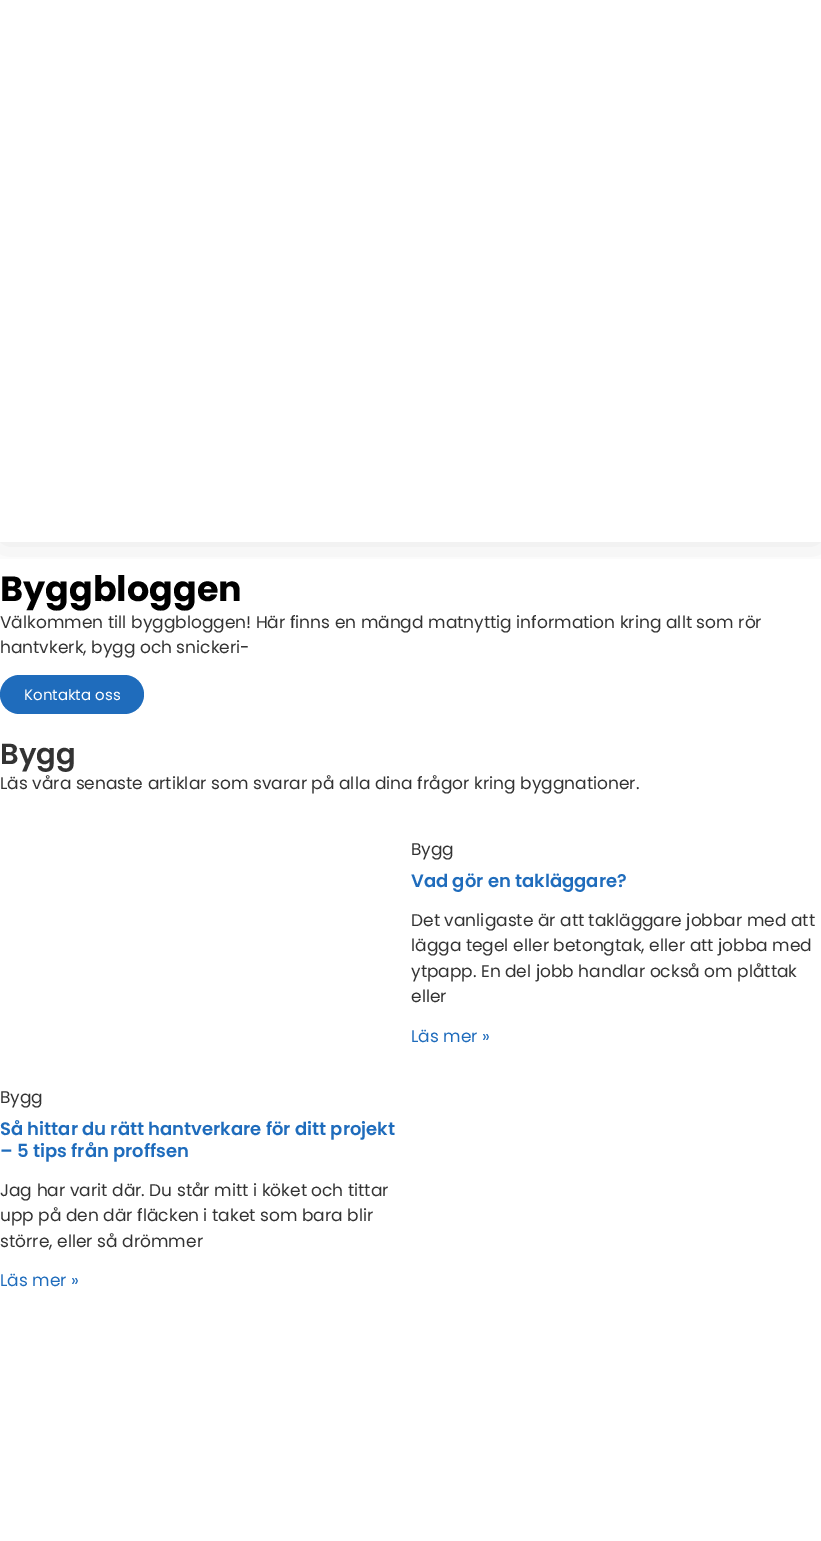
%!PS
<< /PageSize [821 1541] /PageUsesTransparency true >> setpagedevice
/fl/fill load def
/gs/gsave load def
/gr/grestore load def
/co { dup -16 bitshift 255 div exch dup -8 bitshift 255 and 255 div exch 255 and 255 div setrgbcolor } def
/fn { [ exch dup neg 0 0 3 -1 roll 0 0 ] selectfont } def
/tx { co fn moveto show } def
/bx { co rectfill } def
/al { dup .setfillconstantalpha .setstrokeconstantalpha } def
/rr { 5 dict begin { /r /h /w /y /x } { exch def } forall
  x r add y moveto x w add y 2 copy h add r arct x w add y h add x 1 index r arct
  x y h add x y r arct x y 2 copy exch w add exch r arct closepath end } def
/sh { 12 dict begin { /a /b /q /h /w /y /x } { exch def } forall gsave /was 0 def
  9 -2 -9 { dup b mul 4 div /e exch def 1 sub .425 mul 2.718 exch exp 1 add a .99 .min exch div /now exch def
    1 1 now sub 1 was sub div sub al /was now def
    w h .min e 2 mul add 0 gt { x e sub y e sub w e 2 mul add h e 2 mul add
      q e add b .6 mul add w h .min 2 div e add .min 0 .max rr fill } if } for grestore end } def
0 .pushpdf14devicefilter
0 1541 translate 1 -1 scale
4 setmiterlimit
0 0 821 1541 16#FFFFFF bx
gs
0 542 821 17 rectclip
16#000000 co
0 0 821 542 0 20 .1 sh
gr
16#1F6CBC co
0 675 144 39 19.5 rr fl
(Byggbloggen) 0 601 /Poppins-Bold 35 16#000000 tx
(Välkommen till byggbloggen! Här finns en mängd matnyttig information kring allt som rör) 0 628 /Poppins-Regular 17 16#333333 tx
(hantvkerk, bygg och snickeri-) 0 653 /Poppins-Regular 17 16#333333 tx
(Kontakta oss) 24 700 /Poppins-Regular 15 16#FFFFFF tx
(Bygg) 0 764 /Poppins-SemiBold 29 16#333333 tx
(Läs våra senaste artiklar som svarar på alla dina frågor kring byggnationer.) 0 789 /Poppins-Regular 17 16#333333 tx
(Bygg) 411 855 /Poppins-Regular 17 16#333333 tx
(Vad gör en takläggare?) 411 887 /Poppins-SemiBold 18 16#1F6CBC tx
(Det vanligaste är att takläggare jobbar med att) 411 926 /Poppins-Regular 17 16#333333 tx
(lägga tegel eller betongtak, eller att jobba med) 411 951 /Poppins-Regular 17 16#333333 tx
(ytpapp. En del jobb handlar också om plåttak) 411 977 /Poppins-Regular 17 16#333333 tx
(eller) 411 1002 /Poppins-Regular 17 16#333333 tx
(Läs mer ») 411 1042 /Poppins-Regular 17 16#1F6CBC tx
(Bygg) 0 1103 /Poppins-Regular 17 16#333333 tx
(Så hittar du rätt hantverkare för ditt projekt) 0 1135 /Poppins-SemiBold 18 16#1F6CBC tx
(– 5 tips från proffsen) 0 1157 /Poppins-SemiBold 18 16#1F6CBC tx
(Jag har varit där. Du står mitt i köket och tittar) 0 1196 /Poppins-Regular 17 16#333333 tx
(upp på den där fläcken i taket som bara blir) 0 1221 /Poppins-Regular 17 16#333333 tx
(större, eller så drömmer) 0 1247 /Poppins-Regular 17 16#333333 tx
(Läs mer ») 0 1286 /Poppins-Regular 17 16#1F6CBC tx
.poppdf14devicefilter showpage
